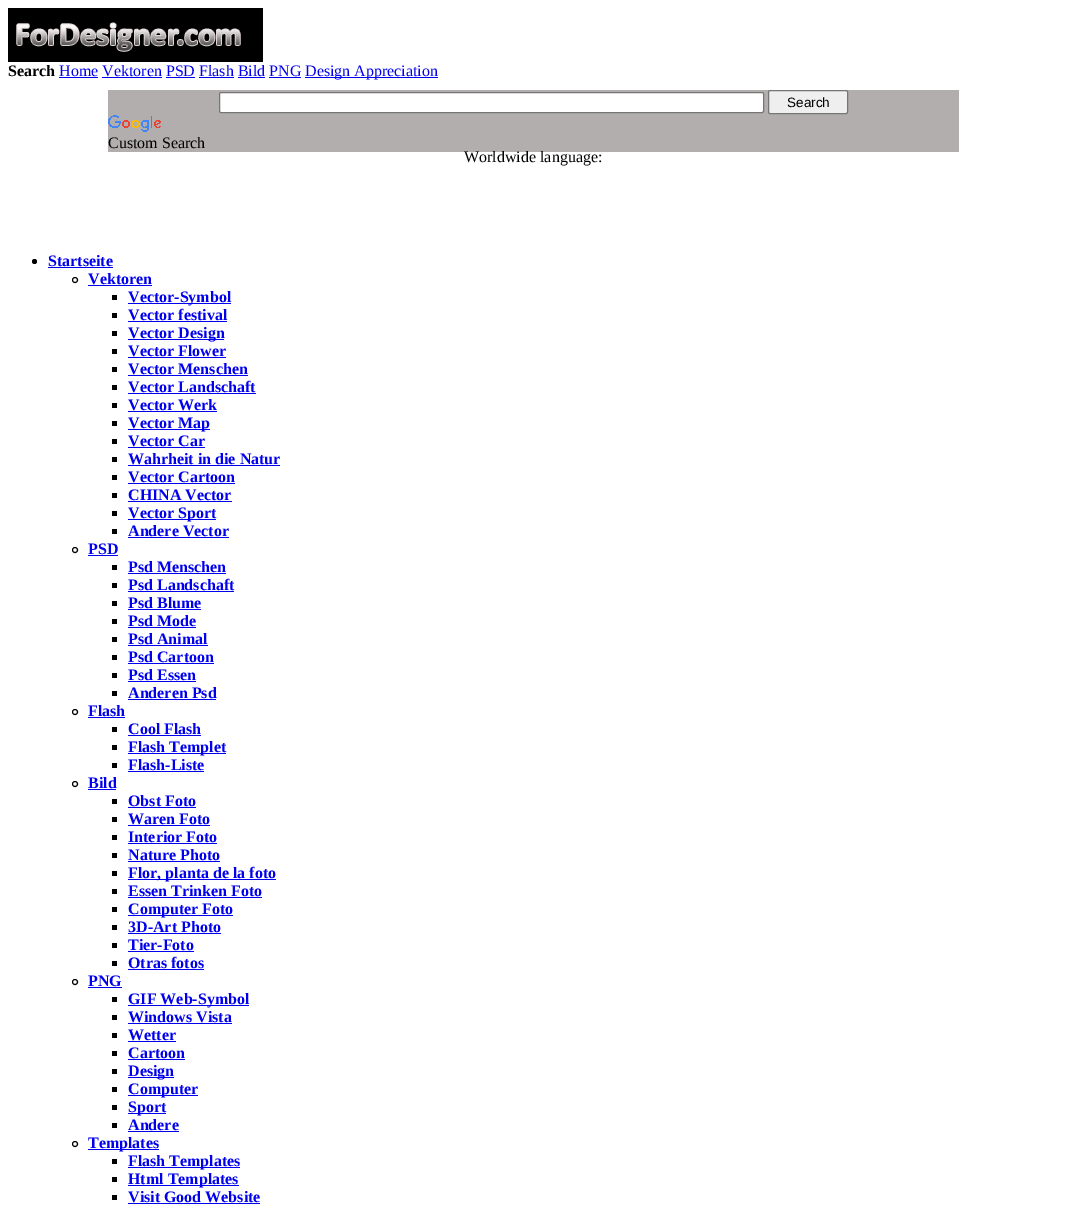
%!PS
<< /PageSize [1067 1208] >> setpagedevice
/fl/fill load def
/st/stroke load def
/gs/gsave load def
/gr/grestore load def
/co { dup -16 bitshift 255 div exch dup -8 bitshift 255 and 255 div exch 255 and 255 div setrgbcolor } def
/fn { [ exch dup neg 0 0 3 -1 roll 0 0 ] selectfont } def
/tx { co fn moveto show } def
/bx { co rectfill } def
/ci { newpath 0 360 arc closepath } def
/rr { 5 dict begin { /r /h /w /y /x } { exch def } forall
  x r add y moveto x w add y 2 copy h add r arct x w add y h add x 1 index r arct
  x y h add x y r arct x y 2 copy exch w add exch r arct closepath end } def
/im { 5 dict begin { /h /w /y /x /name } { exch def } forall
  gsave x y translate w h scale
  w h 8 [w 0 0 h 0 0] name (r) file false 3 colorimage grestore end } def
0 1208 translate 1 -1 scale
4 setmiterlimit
0 0 1067 1208 16#FFFFFF bx
(media/1.raw) 8 8 255 54 im
59 77 39 1 16#0000EE bx
305 77 133 1 16#0000EE bx
102 77 60 1 16#0000EE bx
166 77 29 1 16#0000EE bx
199 77 35 1 16#0000EE bx
238 77 27 1 16#0000EE bx
269 77 32 1 16#0000EE bx
108 90 851 62 16#B2AEAE bx
16#FFFFFF co
219.5 92.5 544 20 1.5 rr gs fl gr
16#767676 co
st
16#EFEFEF co
768.5 90.5 79 23 1.5 rr gs fl gr
16#767676 co
st
(media/2.raw) 108 115 53 17 im
16#000000 co
34.5 261.5 2.5 ci fl
48 267 65 1 16#0000EE bx
16#000000 co
75 280 2.5 ci st
88 285 64 1 16#0000EE bx
112 295 5 5 16#000000 bx
128 303 103 1 16#0000EE bx
112 313 5 5 16#000000 bx
128 321 99 1 16#0000EE bx
112 331 5 5 16#000000 bx
128 339 96 1 16#0000EE bx
112 349 5 5 16#000000 bx
128 357 98 1 16#0000EE bx
112 367 5 5 16#000000 bx
128 375 120 1 16#0000EE bx
112 385 5 5 16#000000 bx
128 393 128 1 16#0000EE bx
112 403 5 5 16#000000 bx
128 411 89 1 16#0000EE bx
112 421 5 5 16#000000 bx
128 429 82 1 16#0000EE bx
112 439 5 5 16#000000 bx
128 447 77 1 16#0000EE bx
112 457 5 5 16#000000 bx
128 465 152 1 16#0000EE bx
112 475 5 5 16#000000 bx
128 483 107 1 16#0000EE bx
112 493 5 5 16#000000 bx
128 501 104 1 16#0000EE bx
112 511 5 5 16#000000 bx
128 519 88 1 16#0000EE bx
112 529 5 5 16#000000 bx
128 537 101 1 16#0000EE bx
16#000000 co
75 550 2.5 ci st
88 555 30 1 16#0000EE bx
112 565 5 5 16#000000 bx
128 573 98 1 16#0000EE bx
112 583 5 5 16#000000 bx
128 591 106 1 16#0000EE bx
112 601 5 5 16#000000 bx
128 609 73 1 16#0000EE bx
112 619 5 5 16#000000 bx
128 627 68 1 16#0000EE bx
112 637 5 5 16#000000 bx
128 645 80 1 16#0000EE bx
112 655 5 5 16#000000 bx
128 663 86 1 16#0000EE bx
112 673 5 5 16#000000 bx
128 681 68 1 16#0000EE bx
112 691 5 5 16#000000 bx
128 699 88 1 16#0000EE bx
16#000000 co
75 712 2.5 ci st
88 717 37 1 16#0000EE bx
112 727 5 5 16#000000 bx
128 735 73 1 16#0000EE bx
112 745 5 5 16#000000 bx
128 753 98 1 16#0000EE bx
112 763 5 5 16#000000 bx
128 771 76 1 16#0000EE bx
16#000000 co
75 784 2.5 ci st
88 789 28 1 16#0000EE bx
112 799 5 5 16#000000 bx
128 807 68 1 16#0000EE bx
112 817 5 5 16#000000 bx
128 825 82 1 16#0000EE bx
112 835 5 5 16#000000 bx
128 843 89 1 16#0000EE bx
112 853 5 5 16#000000 bx
128 861 92 1 16#0000EE bx
112 871 5 5 16#000000 bx
128 879 148 1 16#0000EE bx
112 889 5 5 16#000000 bx
128 897 134 1 16#0000EE bx
112 907 5 5 16#000000 bx
128 915 105 1 16#0000EE bx
112 925 5 5 16#000000 bx
128 933 93 1 16#0000EE bx
112 943 5 5 16#000000 bx
128 951 66 1 16#0000EE bx
112 961 5 5 16#000000 bx
128 969 76 1 16#0000EE bx
16#000000 co
75 982 2.5 ci st
88 987 34 1 16#0000EE bx
112 997 5 5 16#000000 bx
128 1005 121 1 16#0000EE bx
112 1015 5 5 16#000000 bx
128 1023 104 1 16#0000EE bx
112 1033 5 5 16#000000 bx
128 1041 48 1 16#0000EE bx
112 1051 5 5 16#000000 bx
128 1059 57 1 16#0000EE bx
112 1069 5 5 16#000000 bx
128 1077 46 1 16#0000EE bx
112 1087 5 5 16#000000 bx
128 1095 70 1 16#0000EE bx
112 1105 5 5 16#000000 bx
128 1113 38 1 16#0000EE bx
112 1123 5 5 16#000000 bx
128 1131 51 1 16#0000EE bx
16#000000 co
75 1144 2.5 ci st
88 1149 71 1 16#0000EE bx
112 1159 5 5 16#000000 bx
128 1167 112 1 16#0000EE bx
112 1177 5 5 16#000000 bx
128 1185 111 1 16#0000EE bx
112 1195 5 5 16#000000 bx
128 1203 132 1 16#0000EE bx
(Search) 8 76 /LiberationSerif-Bold 16 16#000000 tx
(Home Vektoren PSD Flash Bild PNG) 59 76 /LiberationSerif-Regular 16 16#0000EE tx
(Design Appreciation) 305 76 /LiberationSerif-Regular 16 16#0000EE tx
(Search) 787 107 /LiberationSans-Regular 13.5 16#000000 tx
(Custom Search) 108 148 /LiberationSerif-Regular 16 16#000000 tx
(Worldwide language:) 464 162 /LiberationSerif-Regular 16 16#000000 tx
(Startseite) 48 266 /LiberationSerif-Bold 16 16#0000EE tx
(Vektoren) 88 284 /LiberationSerif-Bold 16 16#0000EE tx
(Vector-Symbol) 128 302 /LiberationSerif-Bold 16 16#0000EE tx
(Vector festival) 128 320 /LiberationSerif-Bold 16 16#0000EE tx
(Vector Design) 128 338 /LiberationSerif-Bold 16 16#0000EE tx
(Vector Flower) 128 356 /LiberationSerif-Bold 16 16#0000EE tx
(Vector Menschen) 128 374 /LiberationSerif-Bold 16 16#0000EE tx
(Vector Landschaft) 128 392 /LiberationSerif-Bold 16 16#0000EE tx
(Vector Werk) 128 410 /LiberationSerif-Bold 16 16#0000EE tx
(Vector Map) 128 428 /LiberationSerif-Bold 16 16#0000EE tx
(Vector Car) 128 446 /LiberationSerif-Bold 16 16#0000EE tx
(Wahrheit in die Natur) 128 464 /LiberationSerif-Bold 16 16#0000EE tx
(Vector Cartoon) 128 482 /LiberationSerif-Bold 16 16#0000EE tx
(CHINA Vector) 128 500 /LiberationSerif-Bold 16 16#0000EE tx
(Vector Sport) 128 518 /LiberationSerif-Bold 16 16#0000EE tx
(Andere Vector) 128 536 /LiberationSerif-Bold 16 16#0000EE tx
(PSD) 88 554 /LiberationSerif-Bold 16 16#0000EE tx
(Psd Menschen) 128 572 /LiberationSerif-Bold 16 16#0000EE tx
(Psd Landschaft) 128 590 /LiberationSerif-Bold 16 16#0000EE tx
(Psd Blume) 128 608 /LiberationSerif-Bold 16 16#0000EE tx
(Psd Mode) 128 626 /LiberationSerif-Bold 16 16#0000EE tx
(Psd Animal) 128 644 /LiberationSerif-Bold 16 16#0000EE tx
(Psd Cartoon) 128 662 /LiberationSerif-Bold 16 16#0000EE tx
(Psd Essen) 128 680 /LiberationSerif-Bold 16 16#0000EE tx
(Anderen Psd) 128 698 /LiberationSerif-Bold 16 16#0000EE tx
(Flash) 88 716 /LiberationSerif-Bold 16 16#0000EE tx
(Cool Flash) 128 734 /LiberationSerif-Bold 16 16#0000EE tx
(Flash Templet) 128 752 /LiberationSerif-Bold 16 16#0000EE tx
(Flash-Liste) 128 770 /LiberationSerif-Bold 16 16#0000EE tx
(Bild) 88 788 /LiberationSerif-Bold 16 16#0000EE tx
(Obst Foto) 128 806 /LiberationSerif-Bold 16 16#0000EE tx
(Waren Foto) 128 824 /LiberationSerif-Bold 16 16#0000EE tx
(Interior Foto) 128 842 /LiberationSerif-Bold 16 16#0000EE tx
(Nature Photo) 128 860 /LiberationSerif-Bold 16 16#0000EE tx
(Flor, planta de la foto) 128 878 /LiberationSerif-Bold 16 16#0000EE tx
(Essen Trinken Foto) 128 896 /LiberationSerif-Bold 16 16#0000EE tx
(Computer Foto) 128 914 /LiberationSerif-Bold 16 16#0000EE tx
(3D-Art Photo) 128 932 /LiberationSerif-Bold 16 16#0000EE tx
(Tier-Foto) 128 950 /LiberationSerif-Bold 16 16#0000EE tx
(Otras fotos) 128 968 /LiberationSerif-Bold 16 16#0000EE tx
(PNG) 88 986 /LiberationSerif-Bold 16 16#0000EE tx
(GIF Web-Symbol) 128 1004 /LiberationSerif-Bold 16 16#0000EE tx
(Windows Vista) 128 1022 /LiberationSerif-Bold 16 16#0000EE tx
(Wetter) 128 1040 /LiberationSerif-Bold 16 16#0000EE tx
(Cartoon) 128 1058 /LiberationSerif-Bold 16 16#0000EE tx
(Design) 128 1076 /LiberationSerif-Bold 16 16#0000EE tx
(Computer) 128 1094 /LiberationSerif-Bold 16 16#0000EE tx
(Sport) 128 1112 /LiberationSerif-Bold 16 16#0000EE tx
(Andere) 128 1130 /LiberationSerif-Bold 16 16#0000EE tx
(Templates) 88 1148 /LiberationSerif-Bold 16 16#0000EE tx
(Flash Templates) 128 1166 /LiberationSerif-Bold 16 16#0000EE tx
(Html Templates) 128 1184 /LiberationSerif-Bold 16 16#0000EE tx
(Visit Good Website) 128 1202 /LiberationSerif-Bold 16 16#0000EE tx
showpage
